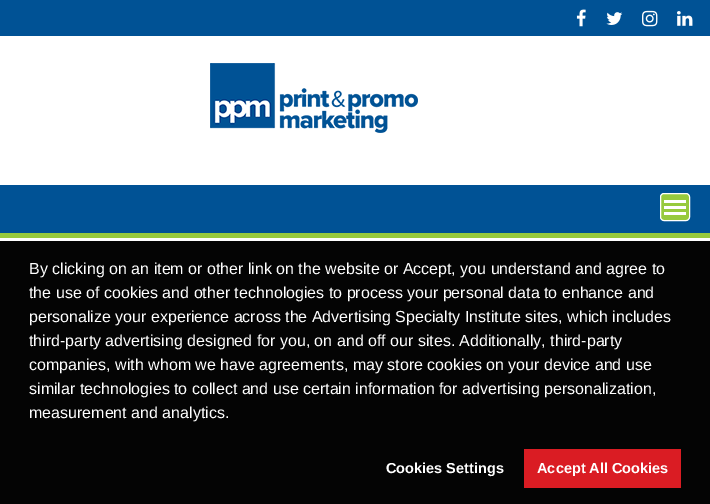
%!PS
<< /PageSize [710 504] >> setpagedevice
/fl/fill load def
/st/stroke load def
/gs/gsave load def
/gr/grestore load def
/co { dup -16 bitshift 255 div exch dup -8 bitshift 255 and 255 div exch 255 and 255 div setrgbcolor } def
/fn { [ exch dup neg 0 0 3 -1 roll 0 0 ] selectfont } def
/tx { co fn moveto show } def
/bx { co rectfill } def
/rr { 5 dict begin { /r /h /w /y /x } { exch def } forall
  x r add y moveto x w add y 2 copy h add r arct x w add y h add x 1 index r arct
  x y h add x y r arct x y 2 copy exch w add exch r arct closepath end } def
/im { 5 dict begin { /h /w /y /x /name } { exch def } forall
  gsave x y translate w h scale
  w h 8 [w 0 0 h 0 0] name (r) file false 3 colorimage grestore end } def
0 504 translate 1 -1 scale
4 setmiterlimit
0 0 710 504 16#FFFFFF bx
0 0 710 36 16#005295 bx
(media/1.raw) 576 9 10 18 im
(media/2.raw) 606 12 17 13 im
(media/3.raw) 642 10 16 17 im
(media/4.raw) 677 11 16 15 im
(media/5.raw) 210 63 208 70 im
0 185 710 48 16#005295 bx
0 233 710 5 16#97CA3D bx
660.5 193.5 29 27 3.5 rr gs fl gr
16#FFFFFF co
st
664 212 22 3 16#FFFFFF bx
664 206 22 3 16#FFFFFF bx
664 200 22 3 16#FFFFFF bx
0 241 710 263 16#040404 bx
524 449 157 39 16#DA1C23 bx
(By clicking on an item or other link on the website or Accept, you understand and agree to) 29 274 /LiberationSans-Regular 16 16#FFFFFF tx
(the use of cookies and other technologies to process your personal data to enhance and) 29 298 /LiberationSans-Regular 16 16#FFFFFF tx
(personalize your experience across the Advertising Specialty Institute sites, which includes) 29 322 /LiberationSans-Regular 16 16#FFFFFF tx
(third-party advertising designed for you, on and off our sites. Additionally, third-party) 29 346 /LiberationSans-Regular 16 16#FFFFFF tx
(companies, with whom we have agreements, may store cookies on your device and use) 29 370 /LiberationSans-Regular 16 16#FFFFFF tx
(similar technologies to collect and use certain information for advertising personalization,) 29 394 /LiberationSans-Regular 16 16#FFFFFF tx
(measurement and analytics.) 29 418 /LiberationSans-Regular 16 16#FFFFFF tx
(Cookies Settings) 386 473 /LiberationSans-Bold 14.5 16#FFFFFF tx
(Accept All Cookies) 537 473 /LiberationSans-Bold 14.5 16#FFFFFF tx
showpage
